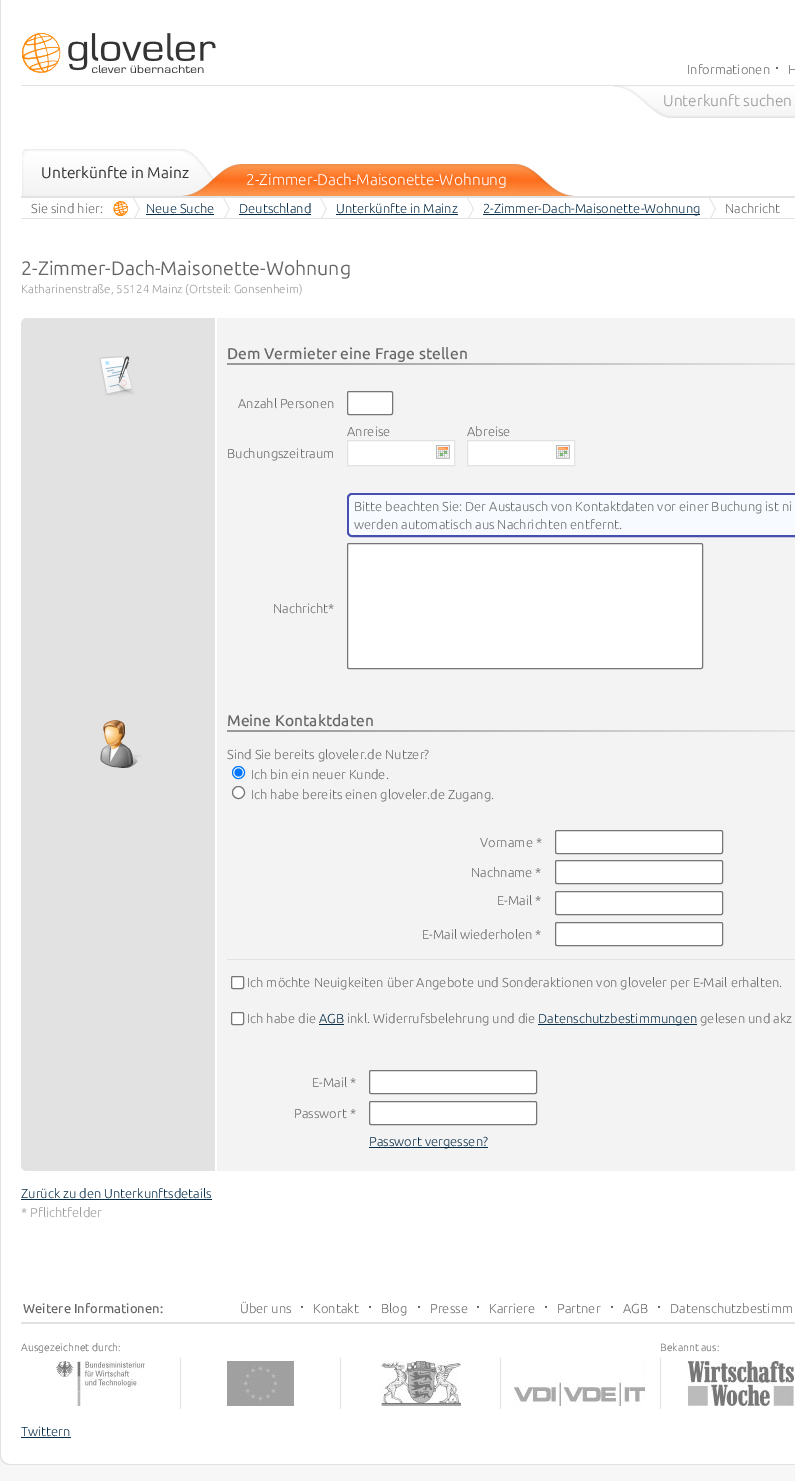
%!PS
<< /PageSize [795 1481] >> setpagedevice
/mt/moveto load def
/li/lineto load def
/ct/curveto load def
/cp/closepath load def
/fl/fill load def
/st/stroke load def
/gs/gsave load def
/gr/grestore load def
/lw/setlinewidth load def
/co { dup -16 bitshift 255 div exch dup -8 bitshift 255 and 255 div exch 255 and 255 div setrgbcolor } def
/fn { [ exch dup neg 0 0 3 -1 roll 0 0 ] selectfont } def
/tx { co fn moveto show } def
/bx { co rectfill } def
/ci { newpath 0 360 arc closepath } def
/rr { 5 dict begin { /r /h /w /y /x } { exch def } forall
  x r add y moveto x w add y 2 copy h add r arct x w add y h add x 1 index r arct
  x y h add x y r arct x y 2 copy exch w add exch r arct closepath end } def
/im { 5 dict begin { /h /w /y /x /name } { exch def } forall
  gsave x y translate w h scale
  w h 8 [w 0 0 h 0 0] name (r) file false 3 colorimage grestore end } def
0 1481 translate 1 -1 scale
4 setmiterlimit
0 0 795 1481 16#F7F7F7 bx
16#FFFFFF co
1 0 mt 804 0 li 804 1455 li 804 1460 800 1464 795 1464 ct 10 1464 li 5 1464 1 1460 1 1455 ct cp fl
16#E2E2E2 co
0 0 mt 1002 0 li 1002 1455 li 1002 1461 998 1465 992 1465 ct 10 1465 li 4 1465 0 1461 0 1455 ct cp 1 0 mt 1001 0 li 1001 1455 li 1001 1460 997 1464 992 1464 ct 10 1464 li 5 1464 1 1460 1 1455 ct cp eofill
21 85 774 1 16#E2E2E2 bx
(media/1.raw) 21 33 195 40 im
(media/2.raw) 776 66 2 3 im
(media/3.raw) 613 86 182 32 im
21 196 774 2 16#E2E2E2 bx
(media/4.raw) 22 149 160 47 im
(media/5.raw) 182 149 62 47 im
(media/6.raw) 244 164 272 32 im
(media/7.raw) 516 164 63 32 im
21 218 774 1 16#E2E2E2 bx
(media/8.raw) 133 198 7 20 im
(media/9.raw) 113 201 15 15 im
146 214 68 1 16#082D48 bx
(media/8.raw) 223 198 7 20 im
239 214 72 1 16#082D48 bx
(media/8.raw) 320 198 7 20 im
336 214 122 1 16#082D48 bx
(media/8.raw) 467 198 7 20 im
483 214 217 1 16#082D48 bx
(media/8.raw) 709 198 7 20 im
(media/10.raw) 21 318 774 5 im
21 323 194 843 16#E2E2E2 bx
(media/11.raw) 99 356 36 40 im
217 323 578 843 16#F3F3F3 bx
(media/12.raw) 227 363 568 2 im
16#FFFFFF co
347.5 391.5 45 23 1.5 rr gs fl gr
16#767676 co
st
348 441 106 24 16#FFFFFF bx
(media/13.raw) 432 441 18 18 im
16#E2E2E2 co
347.5 440.5 107 25 rectstroke
468 441 106 24 16#FFFFFF bx
(media/13.raw) 552 441 18 18 im
16#E2E2E2 co
467.5 440.5 107 25 rectstroke
16#BDD8FE co
348 494 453 42 4 rr gs fl gr
16#464FAF co
2 lw
st
16#F7FBFF co
349 495 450 40 4 rr fl
16#FFFFFF co
347.5 543.5 355 125 1.5 rr gs fl gr
16#767676 co
1 lw
st
(media/14.raw) 21 1166 774 5 im
(media/15.raw) 100 720 42 48 im
(media/12.raw) 227 730 568 2 im
16#FFFFFF co
238.5 772.5 6 ci gs fl gr
16#0075FF co
st
238.5 772.5 4 ci fl
16#FFFFFF co
238.5 792.5 6 ci gs fl gr
16#767676 co
st
16#FFFFFF co
555.5 830.5 167 23 1.5 rr gs fl gr
16#767676 co
st
16#FFFFFF co
555.5 860.5 167 23 1.5 rr gs fl gr
16#767676 co
st
16#FFFFFF co
555.5 891.5 167 23 1.5 rr gs fl gr
16#767676 co
st
227 959 568 1 16#E2E2E2 bx
16#FFFFFF co
555.5 922.5 167 23 1.5 rr gs fl gr
16#767676 co
st
16#FFFFFF co
231.5 976.5 12 12 1.5 rr gs fl gr
16#767676 co
st
16#FFFFFF co
231.5 1012.5 12 12 1.5 rr gs fl gr
16#767676 co
st
319 1024 25 1 16#082D48 bx
538 1024 159 1 16#082D48 bx
16#FFFFFF co
369.5 1070.5 167 23 1.5 rr gs fl gr
16#767676 co
st
16#FFFFFF co
369.5 1101.5 167 23 1.5 rr gs fl gr
16#767676 co
st
369 1147 119 1 16#082D48 bx
21 1199 191 1 16#082D48 bx
21 1322 774 2 16#E2E2E2 bx
(media/2.raw) 301 1305 2 3 im
(media/2.raw) 369 1305 2 3 im
(media/2.raw) 418 1305 2 3 im
(media/2.raw) 477 1305 2 3 im
(media/2.raw) 545 1305 2 3 im
(media/2.raw) 611 1305 2 3 im
(media/2.raw) 658 1305 2 3 im
(media/16.raw) 56 1361 89 45 im
180 1358 1 51 16#E2E2E2 bx
(media/17.raw) 227 1361 67 45 im
340 1358 1 51 16#E2E2E2 bx
(media/18.raw) 380 1361 81 45 im
500 1358 1 51 16#E2E2E2 bx
(media/19.raw) 514 1361 133 45 im
660 1358 1 51 16#E2E2E2 bx
(media/20.raw) 687 1361 107 45 im
21 1437 50 1 16#082D48 bx
(Informationen) 687 74 /Ubuntu-Light 13 16#666666 tx
(H) 788 74 /Ubuntu-Light 13 16#666666 tx
(Unterkunft suchen) 663 106 /Ubuntu-Light 15.6 16#999999 tx
(Unterkünfte in Mainz) 41 178 /Ubuntu-Regular 15.6 16#333333 tx
(2-Zimmer-Dach-Maisonette-Wohnung) 246 185 /Ubuntu-Light 15.6 16#FFFFFF tx
(Sie sind hier:) 31 213 /Ubuntu-Light 13 16#666666 tx
(Neue Suche) 146 213 /Ubuntu-Light 13 16#082D48 tx
(Deutschland) 239 213 /Ubuntu-Light 13 16#082D48 tx
(Unterkünfte in Mainz) 336 213 /Ubuntu-Light 13 16#082D48 tx
(2-Zimmer-Dach-Maisonette-Wohnung) 483 213 /Ubuntu-Light 13 16#082D48 tx
(Nachricht) 725 213 /Ubuntu-Light 13 16#666666 tx
(2-Zimmer-Dach-Maisonette-Wohnung) 21 275 /Ubuntu-Regular 19.5 16#666666 tx
(Katharinenstraße, 55124 Mainz \(Ortsteil: Gonsenheim\)) 21 293 /Ubuntu-Light 11.7 16#999999 tx
(Dem Vermieter eine Frage stellen) 227 359 /Ubuntu-Medium 15.6 16#666666 tx
(Anzahl Personen) 238 408 /Ubuntu-Light 13 16#666666 tx
(Anreise) 347 436 /Ubuntu-Light 13 16#666666 tx
(Abreise) 467 436 /Ubuntu-Light 13 16#666666 tx
(Buchungszeitraum) 227 458 /Ubuntu-Light 13 16#666666 tx
(Bitte beachten Sie: Der Austausch von Kontaktdaten vor einer Buchung ist ni) 354 511 /Ubuntu-Light 13 16#666666 tx
(werden automatisch aus Nachrichten entfernt.) 354 529 /Ubuntu-Light 13 16#666666 tx
(Nachricht*) 273 613 /Ubuntu-Light 13 16#666666 tx
(Meine Kontaktdaten) 227 726 /Ubuntu-Medium 15.6 16#666666 tx
(Sind Sie bereits gloveler.de Nutzer?) 227 759 /Ubuntu-Light 13 16#666666 tx
(Ich bin ein neuer Kunde.) 251 779 /Ubuntu-Light 13 16#666666 tx
(Ich habe bereits einen gloveler.de Zugang.) 251 799 /Ubuntu-Light 13 16#666666 tx
(Vorname *) 480 847 /Ubuntu-Light 13 16#666666 tx
(Nachname *) 471 877 /Ubuntu-Light 13 16#666666 tx
(E-Mail *) 497 905 /Ubuntu-Light 13 16#666666 tx
(E-Mail wiederholen *) 422 939 /Ubuntu-Light 13 16#666666 tx
(Ich möchte Neuigkeiten über Angebote und Sonderaktionen von gloveler per E-Mail erhalten.) 247 987 /Ubuntu-Light 13 16#666666 tx
(Ich habe die) 247 1023 /Ubuntu-Light 13 16#666666 tx
(AGB) 319 1023 /Ubuntu-Light 13 16#082D48 tx
(inkl. Widerrufsbelehrung und die) 347 1023 /Ubuntu-Light 13 16#666666 tx
(Datenschutzbestimmungen) 538 1023 /Ubuntu-Light 13 16#082D48 tx
(gelesen und akz) 700 1023 /Ubuntu-Light 13 16#666666 tx
(E-Mail *) 312 1087 /Ubuntu-Light 13 16#666666 tx
(Passwort *) 294 1118 /Ubuntu-Light 13 16#666666 tx
(Passwort vergessen?) 369 1146 /Ubuntu-Light 13 16#082D48 tx
(Zurück zu den Unterkunftsdetails) 21 1198 /Ubuntu-Light 13 16#082D48 tx
(* Pflichtfelder) 21 1217 /Ubuntu-Light 13 16#999999 tx
(Weitere Informationen:) 23 1313 /Ubuntu-Medium 13 16#666666 tx
(Über uns) 240 1313 /Ubuntu-Light 13 16#666666 tx
(Kontakt) 313 1313 /Ubuntu-Light 13 16#666666 tx
(Blog) 381 1313 /Ubuntu-Light 13 16#666666 tx
(Presse) 430 1313 /Ubuntu-Light 13 16#666666 tx
(Karriere) 489 1313 /Ubuntu-Light 13 16#666666 tx
(Partner) 557 1313 /Ubuntu-Light 13 16#666666 tx
(AGB) 623 1313 /Ubuntu-Light 13 16#666666 tx
(Datenschutzbestimm) 670 1313 /Ubuntu-Light 13 16#666666 tx
(Ausgezeichnet durch:) 21 1351 /Ubuntu-Light 10.5 16#666666 tx
(Bekannt aus:) 660 1351 /Ubuntu-Light 10.5 16#666666 tx
(Twittern) 21 1436 /Ubuntu-Light 13 16#082D48 tx
showpage
